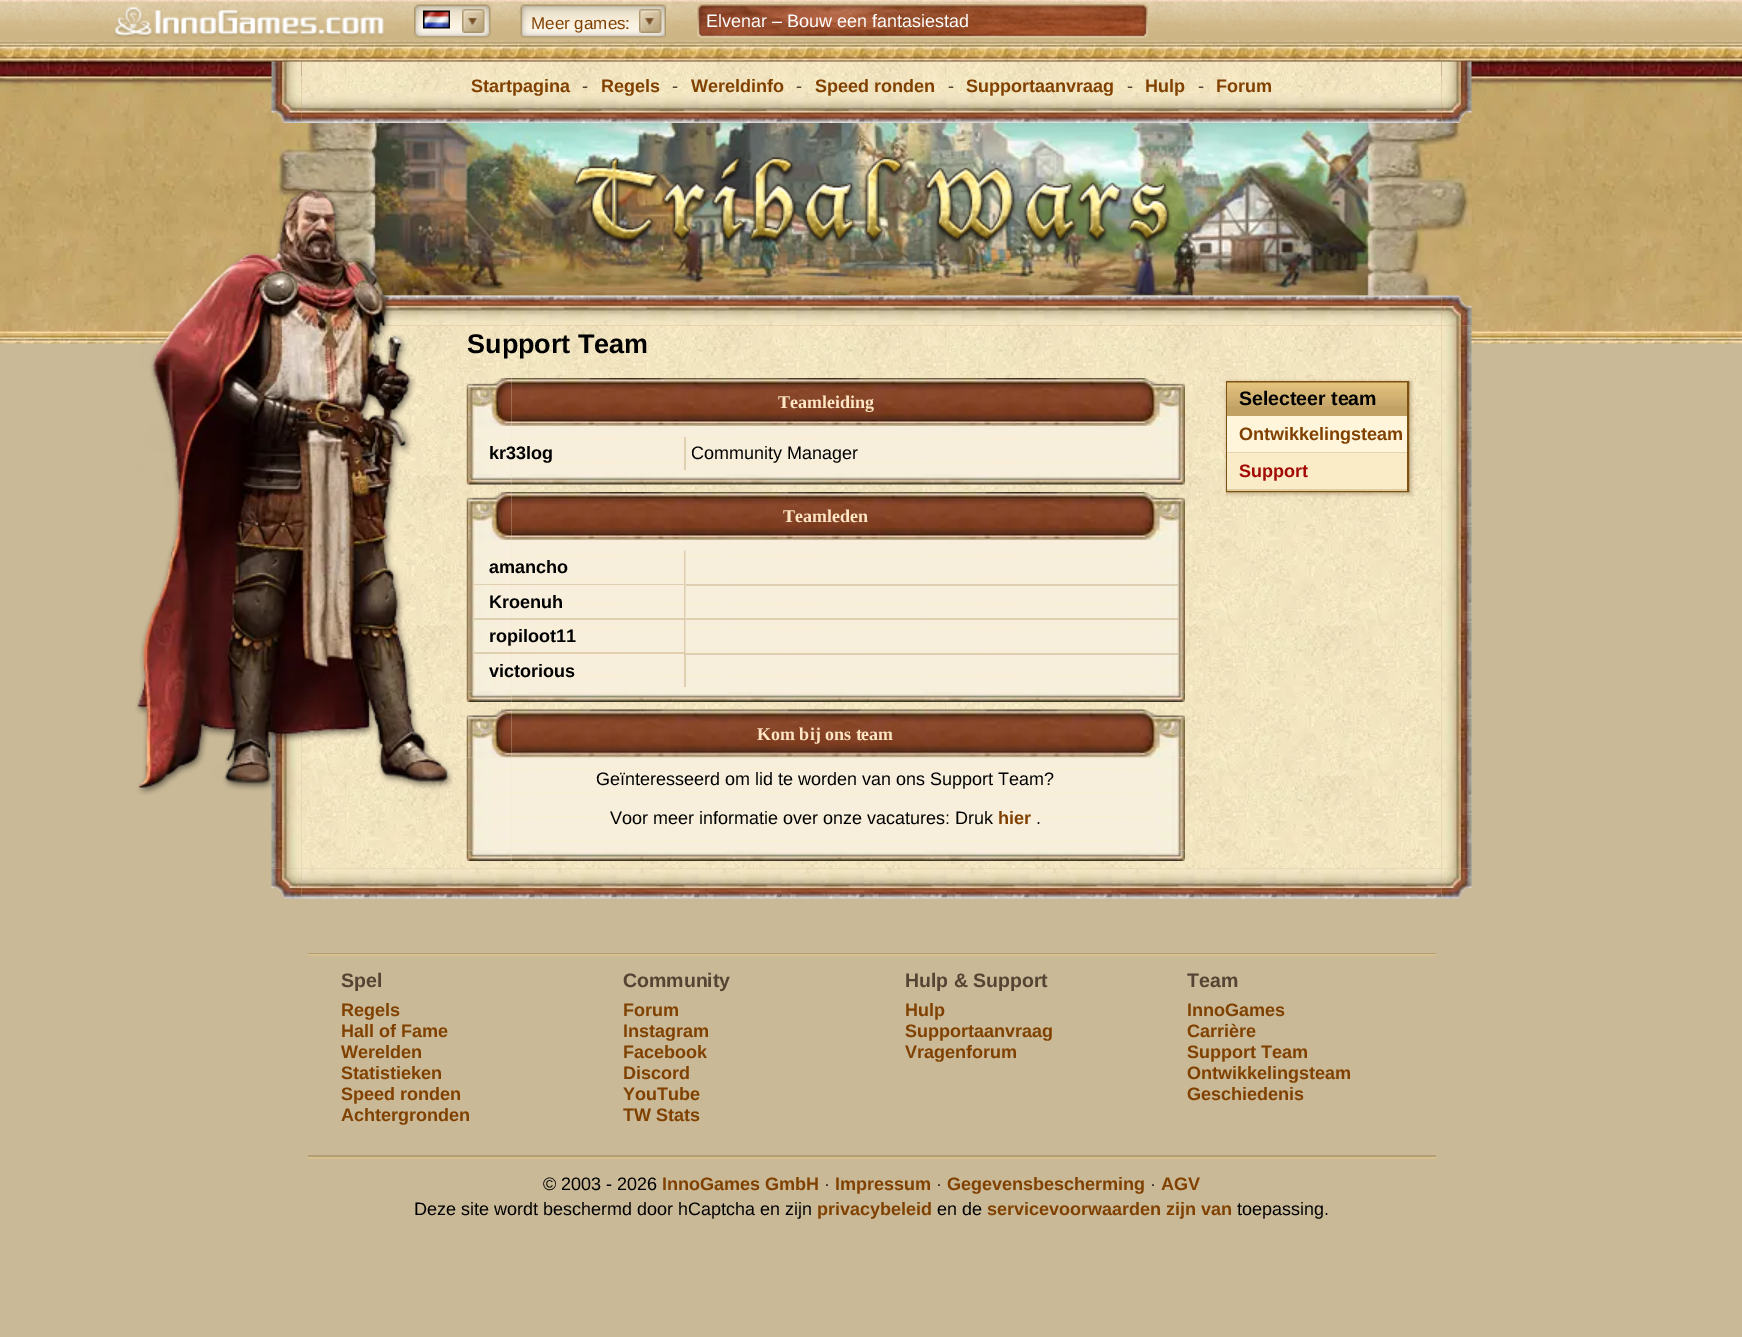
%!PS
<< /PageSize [1742 1337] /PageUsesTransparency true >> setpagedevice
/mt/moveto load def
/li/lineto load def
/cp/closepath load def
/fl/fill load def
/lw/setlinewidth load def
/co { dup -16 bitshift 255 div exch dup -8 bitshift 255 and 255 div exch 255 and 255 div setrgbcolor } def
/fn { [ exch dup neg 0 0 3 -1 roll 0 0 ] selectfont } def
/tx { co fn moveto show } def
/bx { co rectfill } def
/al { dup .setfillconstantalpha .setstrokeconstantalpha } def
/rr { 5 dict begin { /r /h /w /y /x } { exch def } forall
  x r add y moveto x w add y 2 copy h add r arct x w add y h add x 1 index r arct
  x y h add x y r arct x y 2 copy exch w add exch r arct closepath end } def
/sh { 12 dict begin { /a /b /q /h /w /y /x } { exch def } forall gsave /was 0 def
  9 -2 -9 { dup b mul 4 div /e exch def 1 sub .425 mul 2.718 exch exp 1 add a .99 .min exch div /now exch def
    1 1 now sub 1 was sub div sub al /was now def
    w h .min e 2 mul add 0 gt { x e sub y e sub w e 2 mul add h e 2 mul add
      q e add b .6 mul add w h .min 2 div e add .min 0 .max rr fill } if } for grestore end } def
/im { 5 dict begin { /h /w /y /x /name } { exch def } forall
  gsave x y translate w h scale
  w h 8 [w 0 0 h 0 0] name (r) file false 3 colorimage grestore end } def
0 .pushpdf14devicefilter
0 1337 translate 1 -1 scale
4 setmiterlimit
0 0 1742 1337 16#C9B997 bx
0 31 1742 7 16#CDB585 bx
(media/1.raw) 0 0 1742 31 im
(media/2.raw) 114 7 270 31 im
(media/3.raw) 414 4 77 34 im
(media/4.raw) 423 10 27 19 im
(media/5.raw) 462 9 23 24 im
(media/6.raw) 520 4 17 34 im
(media/7.raw) 537 4 129 34 im
(media/8.raw) 639 9 23 24 im
(media/9.raw) 697 4 451 34 im
(media/10.raw) 0 38 1742 6 im
(media/11.raw) 0 43 1742 301 im
(media/13.raw) 301 61 1141 32 im
(media/12.raw) 271 61 31 32 im
(media/14.raw) 1441 61 31 32 im
(media/16.raw) 301 93 1141 30 im
(media/15.raw) 271 93 31 30 im
(media/17.raw) 1441 93 31 30 im
(media/18.raw) 271 123 1201 173 im
(media/19.raw) 572 157 600 89 im
(media/21.raw) 1441 295 31 31 im
(media/20.raw) 379 295 1063 31 im
(media/31.raw) 301 868 1141 31 im
(media/22.raw) 301 325 1141 544 im
(media/23.raw) 1441 325 31 544 im
(media/24.raw) 271 731 31 138 im
(media/25.raw) 135 187 318 608 im
(media/26.raw) 466 378 719 107 im
0.2 al
684 437 2 33 16#7D510F bx
1 al
16#3C1E00 co
1226 381 186 114 0 1.5 .2 sh
16#7D510F co
2 lw
1227 382 181 109 rectstroke
1227 406 180 10 16#C1A264 bx
(media/27.raw) 1227 382 180 24 im
1227 416 180 37 16#FFF5DA bx
0.2 al
1227 452 180 1 16#7D510F bx
1 al
1227 453 180 36 16#FAECC7 bx
1227 489 180 2 16#E1CDA2 bx
(media/28.raw) 466 492 719 210 im
0.2 al
16#7D510F co
685.5 550.5 mt 685.5 585 li 684 583.5 li 684 550.5 li cp fl
686 585 mt 474 585 li 474 584 li 684 584 li cp fl
686 584 492 2 16#7D510F bx
685.5 585 mt 685.5 619.5 li 684 618 li 684 585 li cp fl
686 620 mt 474 620 li 474 618 li 684 618 li cp fl
686 618 492 2 16#7D510F bx
685.5 619.5 mt 685.5 654 li 684 652.5 li 684 619.5 li cp fl
686 654 mt 474 654 li 474 652 li 684 652 li cp fl
686 653 492 2 16#7D510F bx
684 654 2 33 16#7D510F bx
1 al
(media/29.raw) 466 709 719 152 im
(media/30.raw) 271 868 31 31 im
(media/32.raw) 1441 868 31 31 im
308 953 1128 1 16#B29F76 bx
308 954 1128 2 16#D6C090 bx
308 1155 1128 2 16#B29F76 bx
308 1157 1128 2 16#D6C090 bx
(Meer games:) 531 29 /LiberationSans-Regular 17 16#804000 tx
(Elvenar – Bouw een fantasiestad) 706 27 /LiberationSans-Regular 18 16#FFFFFF tx
(Startpagina) 471 92 /LiberationSans-Bold 18 16#804000 tx
(-) 582 92 /LiberationSans-Regular 18 16#554433 tx
(Regels) 601 92 /LiberationSans-Bold 18 16#804000 tx
(-) 672 92 /LiberationSans-Regular 18 16#554433 tx
(Wereldinfo) 691 92 /LiberationSans-Bold 18 16#804000 tx
(-) 796 92 /LiberationSans-Regular 18 16#554433 tx
(Speed ronden) 815 92 /LiberationSans-Bold 18 16#804000 tx
(-) 948 92 /LiberationSans-Regular 18 16#554433 tx
(Supportaanvraag) 966 92 /LiberationSans-Bold 18 16#804000 tx
(-) 1127 92 /LiberationSans-Regular 18 16#554433 tx
(Hulp) 1145 92 /LiberationSans-Bold 18 16#804000 tx
(-) 1198 92 /LiberationSans-Regular 18 16#554433 tx
(Forum) 1216 92 /LiberationSans-Bold 18 16#804000 tx
(Support Team) 467 353 /LiberationSans-Bold 27 16#000000 tx
(Teamleiding) 778 408 /LiberationSerif-Bold 18 16#FEE6C4 tx
(kr33log) 489 459 /LiberationSans-Bold 18 16#000000 tx
(Community Manager) 691 459 /LiberationSans-Regular 18 16#000000 tx
(Selecteer team) 1239 405 /LiberationSans-Bold 19.5 16#000000 tx
(Ontwikkelingsteam) 1239 440 /LiberationSans-Bold 18 16#804000 tx
(Support) 1239 477 /LiberationSans-Bold 18 16#A30A06 tx
(Teamleden) 783 522 /LiberationSerif-Bold 18 16#FEE6C4 tx
(amancho) 489 573 /LiberationSans-Bold 18 16#000000 tx
(Kroenuh) 489 608 /LiberationSans-Bold 18 16#000000 tx
(ropiloot11) 489 642 /LiberationSans-Bold 18 16#000000 tx
(victorious) 489 677 /LiberationSans-Bold 18 16#000000 tx
(Kom bij ons team) 757 740 /LiberationSerif-Bold 18 16#FEE6C4 tx
(Geïnteresseerd om lid te worden van ons Support Team?) 596 785 /LiberationSans-Regular 18 16#000000 tx
(Voor meer informatie over onze vacatures: Druk) 610 824 /LiberationSans-Regular 18 16#000000 tx
(hier) 998 824 /LiberationSans-Bold 18 16#804000 tx
(.) 1036 824 /LiberationSans-Regular 18 16#000000 tx
(Spel) 341 987 /LiberationSans-Bold 19.5 16#554433 tx
(Regels) 341 1016 /LiberationSans-Bold 18 16#804000 tx
(Hall of Fame) 341 1037 /LiberationSans-Bold 18 16#804000 tx
(Werelden) 341 1058 /LiberationSans-Bold 18 16#804000 tx
(Statistieken) 341 1079 /LiberationSans-Bold 18 16#804000 tx
(Speed ronden) 341 1100 /LiberationSans-Bold 18 16#804000 tx
(Achtergronden) 341 1121 /LiberationSans-Bold 18 16#804000 tx
(Community) 623 987 /LiberationSans-Bold 19.5 16#554433 tx
(Forum) 623 1016 /LiberationSans-Bold 18 16#804000 tx
(Instagram) 623 1037 /LiberationSans-Bold 18 16#804000 tx
(Facebook) 623 1058 /LiberationSans-Bold 18 16#804000 tx
(Discord) 623 1079 /LiberationSans-Bold 18 16#804000 tx
(YouTube) 623 1100 /LiberationSans-Bold 18 16#804000 tx
(TW Stats) 623 1121 /LiberationSans-Bold 18 16#804000 tx
(Hulp & Support) 905 987 /LiberationSans-Bold 19.5 16#554433 tx
(Hulp) 905 1016 /LiberationSans-Bold 18 16#804000 tx
(Supportaanvraag) 905 1037 /LiberationSans-Bold 18 16#804000 tx
(Vragenforum) 905 1058 /LiberationSans-Bold 18 16#804000 tx
(Team) 1187 987 /LiberationSans-Bold 19.5 16#554433 tx
(InnoGames) 1187 1016 /LiberationSans-Bold 18 16#804000 tx
(Carrière) 1187 1037 /LiberationSans-Bold 18 16#804000 tx
(Support Team) 1187 1058 /LiberationSans-Bold 18 16#804000 tx
(Ontwikkelingsteam) 1187 1079 /LiberationSans-Bold 18 16#804000 tx
(Geschiedenis) 1187 1100 /LiberationSans-Bold 18 16#804000 tx
(© 2003 - 2026) 543 1190 /LiberationSans-Regular 18 16#000000 tx
(InnoGames GmbH) 662 1190 /LiberationSans-Bold 18 16#804000 tx
(·) 824 1190 /LiberationSans-Regular 18 16#000000 tx
(Impressum) 835 1190 /LiberationSans-Bold 18 16#804000 tx
(·) 936 1190 /LiberationSans-Regular 18 16#000000 tx
(Gegevensbescherming) 947 1190 /LiberationSans-Bold 18 16#804000 tx
(·) 1150 1190 /LiberationSans-Regular 18 16#000000 tx
(AGV) 1161 1190 /LiberationSans-Bold 18 16#804000 tx
(Deze site wordt beschermd door hCaptcha en zijn) 414 1215 /LiberationSans-Regular 18 16#000000 tx
(privacybeleid) 817 1215 /LiberationSans-Bold 18 16#804000 tx
(en de) 937 1215 /LiberationSans-Regular 18 16#000000 tx
(servicevoorwaarden zijn van) 987 1215 /LiberationSans-Bold 18 16#804000 tx
(toepassing.) 1237 1215 /LiberationSans-Regular 18 16#000000 tx
.poppdf14devicefilter showpage
